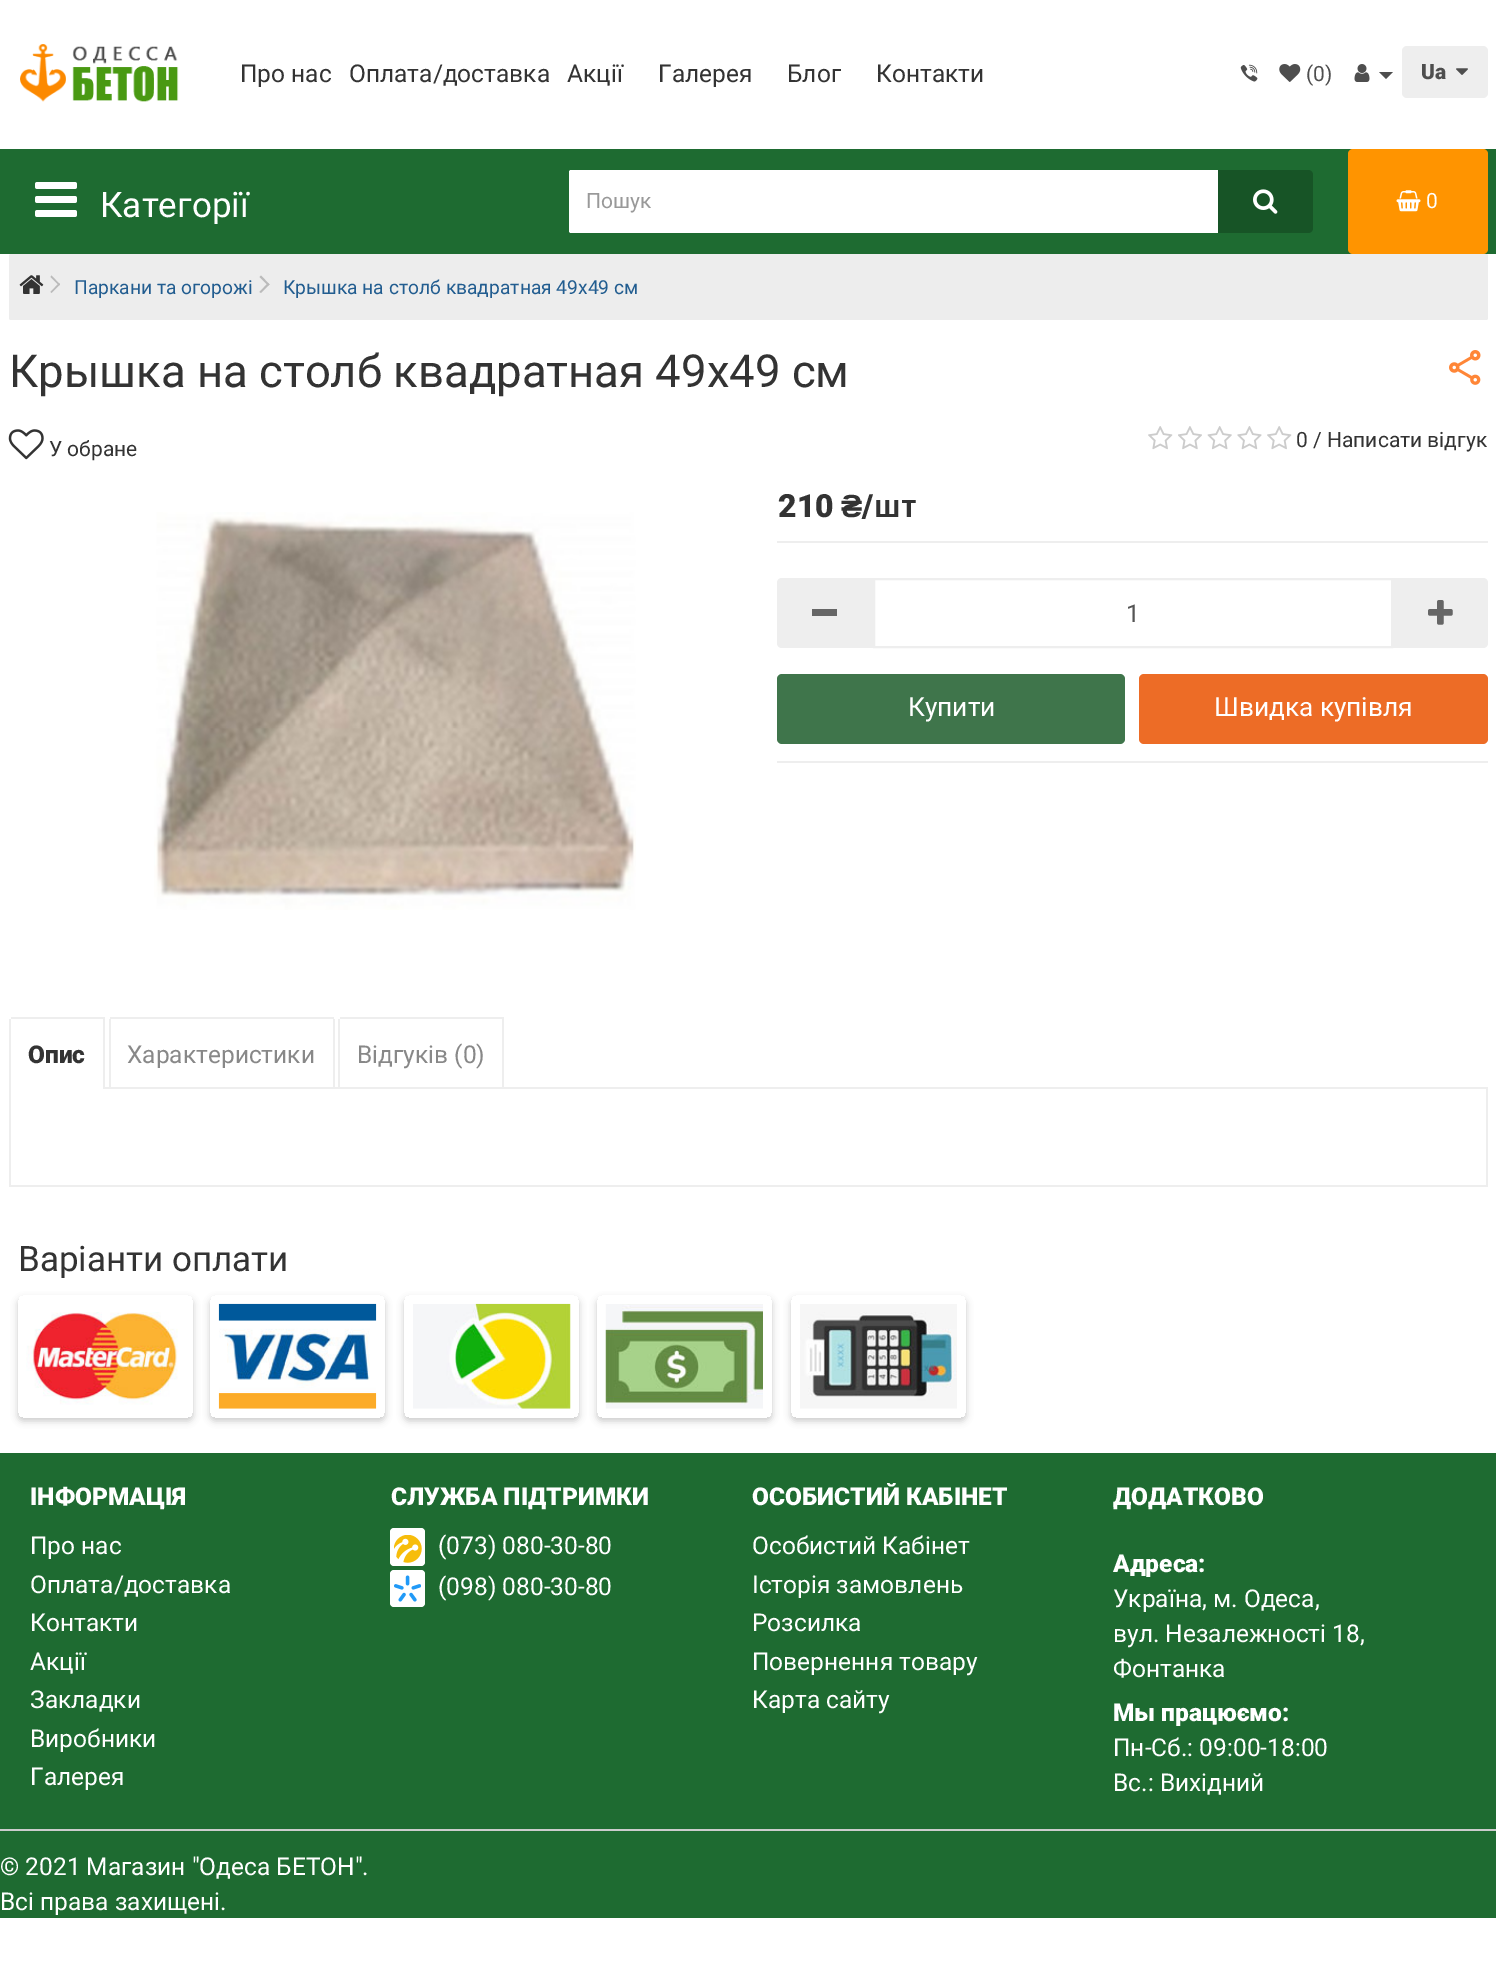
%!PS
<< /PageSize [1496 1982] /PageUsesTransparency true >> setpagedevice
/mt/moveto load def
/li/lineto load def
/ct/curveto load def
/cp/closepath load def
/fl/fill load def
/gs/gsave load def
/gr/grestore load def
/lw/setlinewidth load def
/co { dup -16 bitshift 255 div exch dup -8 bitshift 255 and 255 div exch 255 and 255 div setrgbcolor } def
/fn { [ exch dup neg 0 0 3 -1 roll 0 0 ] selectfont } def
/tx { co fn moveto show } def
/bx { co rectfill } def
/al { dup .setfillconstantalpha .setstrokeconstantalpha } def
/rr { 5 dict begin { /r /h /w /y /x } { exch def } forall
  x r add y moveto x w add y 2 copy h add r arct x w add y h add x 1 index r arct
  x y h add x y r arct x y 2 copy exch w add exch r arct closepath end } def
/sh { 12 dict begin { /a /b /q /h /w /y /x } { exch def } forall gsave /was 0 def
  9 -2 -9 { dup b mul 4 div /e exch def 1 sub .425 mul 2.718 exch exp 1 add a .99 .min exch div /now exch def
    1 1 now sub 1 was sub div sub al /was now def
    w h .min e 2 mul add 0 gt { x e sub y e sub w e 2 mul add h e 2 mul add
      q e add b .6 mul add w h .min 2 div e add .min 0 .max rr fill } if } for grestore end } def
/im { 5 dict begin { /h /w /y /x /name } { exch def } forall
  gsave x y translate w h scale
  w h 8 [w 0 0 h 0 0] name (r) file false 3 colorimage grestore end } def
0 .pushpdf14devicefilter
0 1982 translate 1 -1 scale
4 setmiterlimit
0 0 1496 1982 16#FFFFFF bx
(media/1.raw) 20 44 159 58 im
(media/2.raw) 1240 64 18 18 im
(media/3.raw) 1279 64 22 18 im
(media/4.raw) 1354 64 16 18 im
16#4E4E4E co
1379 72 mt 1393 72 li 1386 79 li cp fl
16#EEEEEE co
1402 46 86 52 5 rr fl
(media/5.raw) 1456 68 12 7 im
0 149 1496 105 16#1E6B31 bx
(media/6.raw) 35 182 42 35 im
16#FFFFFF co
571 170 mt 1220 170 li 1220 233 li 571 233 li 570 233 569 232 569 231 ct 569 172 li 569 171 570 170 571 170 ct cp fl
16#175426 co
1218 170 mt 1308 170 li 1311 170 1313 172 1313 175 ct 1313 228 li 1313 231 1311 233 1308 233 ct 1218 233 li cp fl
(media/7.raw) 1253 189 25 25 im
16#FF9400 co
1348 149 140 105 5 rr fl
(media/8.raw) 1396 190 25 22 im
16#EDEDED co
9 254 1479 66 2 rr fl
(media/9.raw) 19 275 25 19 im
16#BBBBBB co
50.5 277 mt 51.5 275.5 li 60 284.5 li 59 285.5 li cp fl
50.5 292 mt 59 283 li 60 284.5 li 51.5 293 li cp fl
259.5 277 mt 261 275.5 li 269.5 284.5 li 268 285.5 li cp fl
259.5 292 mt 268 283 li 269.5 284.5 li 261 293 li cp fl
(media/10.raw) 1449 350 32 35 im
(media/11.raw) 8 429 36 31 im
(media/12.raw) 1148 426 25 24 im
(media/13.raw) 1178 426 24 24 im
(media/14.raw) 1207 426 25 24 im
(media/15.raw) 1237 426 25 24 im
(media/12.raw) 1267 426 25 24 im
(media/16.raw) 154 512 482 398 im
777 541 711 2 16#EEEEEE bx
777 761 711 2 16#EEEEEE bx
782 578 mt 873 578 li 873 648 li 782 648 li 779 648 777 646 777 643 ct 777 583 li 777 580 779 578 782 578 ct cp fl
812 609 25 7 16#666666 bx
16#EEEEEE co
2 lw
874 579 518 68 rectstroke
1393 578 mt 1483 578 li 1486 578 1488 580 1488 583 ct 1488 643 li 1488 646 1486 648 1483 648 ct 1393 648 li cp fl
(media/17.raw) 1428 600 25 25 im
16#3F754B co
777 674 348 70 5 rr fl
16#ED6C26 co
1139 674 349 70 5 rr fl
105 1087 1383 2 16#EEEEEE bx
11 1017 94 2 16#EEEEEE bx
103 1019 2 70 16#EEEEEE bx
110 1017 224 2 16#EEEEEE bx
333 1019 2 70 16#EEEEEE bx
109 1019 2 70 16#EEEEEE bx
340 1017 164 2 16#EEEEEE bx
502 1019 2 70 16#EEEEEE bx
338 1019 2 70 16#EEEEEE bx
1486 1089 2 98 16#EEEEEE bx
9 1185 1479 2 16#EEEEEE bx
9 1019 2 168 16#EEEEEE bx
gs
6 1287 mt 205 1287 li 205 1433 li 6 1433 li cp 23 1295 mt 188 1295 li 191 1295 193 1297 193 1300 ct 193 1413 li 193 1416 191 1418 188 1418 ct 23 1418 li 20 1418 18 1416 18 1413 ct 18 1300 li 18 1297 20 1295 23 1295 ct cp eoclip newpath
16#000000 co
18 1299 175 122 5 3.5 .2 sh
gr
gs
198 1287 mt 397 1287 li 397 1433 li 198 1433 li cp 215 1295 mt 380 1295 li 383 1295 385 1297 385 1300 ct 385 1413 li 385 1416 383 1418 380 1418 ct 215 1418 li 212 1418 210 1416 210 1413 ct 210 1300 li 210 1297 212 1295 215 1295 ct cp eoclip newpath
16#000000 co
210 1299 175 122 5 3.5 .2 sh
gr
gs
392 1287 mt 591 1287 li 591 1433 li 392 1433 li cp 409 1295 mt 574 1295 li 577 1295 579 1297 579 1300 ct 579 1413 li 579 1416 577 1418 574 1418 ct 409 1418 li 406 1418 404 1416 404 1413 ct 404 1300 li 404 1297 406 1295 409 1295 ct cp eoclip newpath
16#000000 co
404 1299 175 122 5 3.5 .2 sh
gr
gs
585 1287 mt 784 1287 li 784 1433 li 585 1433 li cp 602 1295 mt 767 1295 li 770 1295 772 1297 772 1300 ct 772 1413 li 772 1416 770 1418 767 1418 ct 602 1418 li 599 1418 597 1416 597 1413 ct 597 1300 li 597 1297 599 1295 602 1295 ct cp eoclip newpath
16#000000 co
597 1299 175 122 5 3.5 .2 sh
gr
gs
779 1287 mt 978 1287 li 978 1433 li 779 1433 li cp 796 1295 mt 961 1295 li 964 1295 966 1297 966 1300 ct 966 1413 li 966 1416 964 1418 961 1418 ct 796 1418 li 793 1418 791 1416 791 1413 ct 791 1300 li 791 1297 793 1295 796 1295 ct cp eoclip newpath
16#000000 co
791 1299 175 122 5 3.5 .2 sh
gr
(media/18.raw) 26 1312 152 93 im
(media/19.raw) 218 1303 159 106 im
(media/20.raw) 413 1303 158 106 im
(media/21.raw) 605 1304 158 105 im
(media/22.raw) 800 1304 157 105 im
0 1453 1496 465 16#1E6B31 bx
16#FFFFFF co
390 1528 35 38 4 rr fl
(media/23.raw) 394 1535 28 28 im
390 1570 35 37 4 rr fl
(media/24.raw) 394 1575 27 27 im
0 1829 1496 2 16#CCCCCC bx
(Про нас) 240 82 /Roboto-Regular 24.5 16#333333 tx
(Оплата/доставка) 349 82 /Roboto-Regular 24.5 16#333333 tx
(Акції) 567 82 /Roboto-Regular 24.5 16#333333 tx
(Галерея) 658 82 /Roboto-Regular 24.5 16#333333 tx
(Блог) 787 82 /Roboto-Regular 24.5 16#333333 tx
(Контакти) 876 82 /Roboto-Regular 24.5 16#333333 tx
(\(0\)) 1306 81 /Roboto-Regular 21 16#4E4E4E tx
(Ua) 1421 79 /Roboto-Black 21 16#4E4E4E tx
(Категорії) 100 217 /Roboto-Regular 35 16#FFFFFF tx
(Пошук) 586 208 /Roboto-Regular 21 16#999999 tx
(0) 1426 208 /Roboto-Regular 21 16#FFFFFF tx
(Паркани та огорожі) 74 294 /Roboto-Regular 19.25 16#225D90 tx
(Крышка на столб квадратная 49х49 см) 283 294 /Roboto-Regular 19.25 16#225D90 tx
(Крышка на столб квадратная 49х49 см) 9 387 /Roboto-Regular 45.5 16#333333 tx
(У обране) 49 456 /Roboto-Regular 21 16#333333 tx
(0 / Написати відгук) 1296 447 /Roboto-Regular 21 16#333333 tx
(210) 778 517 /Roboto-Black 32 16#333333 tx
(₴) 841 517 /LiberationSans-Bold 32 16#333333 tx
(/) 862 517 /Roboto-Black 32 16#333333 tx
(шт) 874 517 /LiberationSans-Bold 32 16#333333 tx
(1) 1126 622 /Roboto-Regular 24.5 16#555555 tx
(Купити) 908 716 /Roboto-Regular 26.25 16#FFFFFF tx
(Швидка купівля) 1214 716 /Roboto-Regular 26.25 16#FFFFFF tx
(Опис) 28 1063 /Roboto-Black 24.5 16#333333 tx
(Характеристики) 127 1063 /Roboto-Regular 24.5 16#888888 tx
(Відгуків \(0\)) 357 1063 /Roboto-Regular 24.5 16#888888 tx
(Варіанти оплати) 18 1271 /Roboto-Regular 35 16#333333 tx
(ІНФОРМАЦІЯ) 30 1505 /Roboto-Black 24.5 16#FFFFFF tx
(Про нас) 30 1554 /Roboto-Regular 24.5 16#FFFFFF tx
(Оплата/доставка) 30 1593 /Roboto-Regular 24.5 16#FFFFFF tx
(Контакти) 30 1631 /Roboto-Regular 24.5 16#FFFFFF tx
(Акції) 30 1670 /Roboto-Regular 24.5 16#FFFFFF tx
(Закладки) 30 1708 /Roboto-Regular 24.5 16#FFFFFF tx
(Виробники) 30 1747 /Roboto-Regular 24.5 16#FFFFFF tx
(Галерея) 30 1785 /Roboto-Regular 24.5 16#FFFFFF tx
(СЛУЖБА ПІДТРИМКИ) 391 1505 /Roboto-Black 24.5 16#FFFFFF tx
(\(073\) 080-30-80) 438 1554 /Roboto-Regular 24.5 16#FFFFFF tx
(\(098\) 080-30-80) 438 1595 /Roboto-Regular 24.5 16#FFFFFF tx
(ОСОБИСТИЙ КАБІНЕТ) 752 1505 /Roboto-Black 24.5 16#FFFFFF tx
(Особистий Кабінет) 752 1554 /Roboto-Regular 24.5 16#FFFFFF tx
(Історія замовлень) 752 1593 /Roboto-Regular 24.5 16#FFFFFF tx
(Розсилка) 752 1631 /Roboto-Regular 24.5 16#FFFFFF tx
(Повернення товару) 752 1670 /Roboto-Regular 24.5 16#FFFFFF tx
(Карта сайту) 752 1708 /Roboto-Regular 24.5 16#FFFFFF tx
(ДОДАТКОВО) 1113 1505 /Roboto-Black 24.5 16#FFFFFF tx
(Адреса:) 1113 1572 /Roboto-Black 24.5 16#FFFFFF tx
(Україна, м. Одеса,) 1113 1607 /Roboto-Regular 24.5 16#FFFFFF tx
(вул. Незалежності 18,) 1113 1642 /Roboto-Regular 24.5 16#FFFFFF tx
(Фонтанка) 1113 1677 /Roboto-Regular 24.5 16#FFFFFF tx
(Мы працюємо:) 1113 1721 /Roboto-Black 24.5 16#FFFFFF tx
(Пн-Сб.: 09:00-18:00) 1113 1756 /Roboto-Regular 24.5 16#FFFFFF tx
(Вс.: Вихідний) 1113 1791 /Roboto-Regular 24.5 16#FFFFFF tx
(© 2021 Магазин "Одеса БЕТОН".) 0 1875 /Roboto-Regular 24.5 16#FFFFFF tx
(Всі права захищені.) 0 1910 /Roboto-Regular 24.5 16#FFFFFF tx
.poppdf14devicefilter showpage
